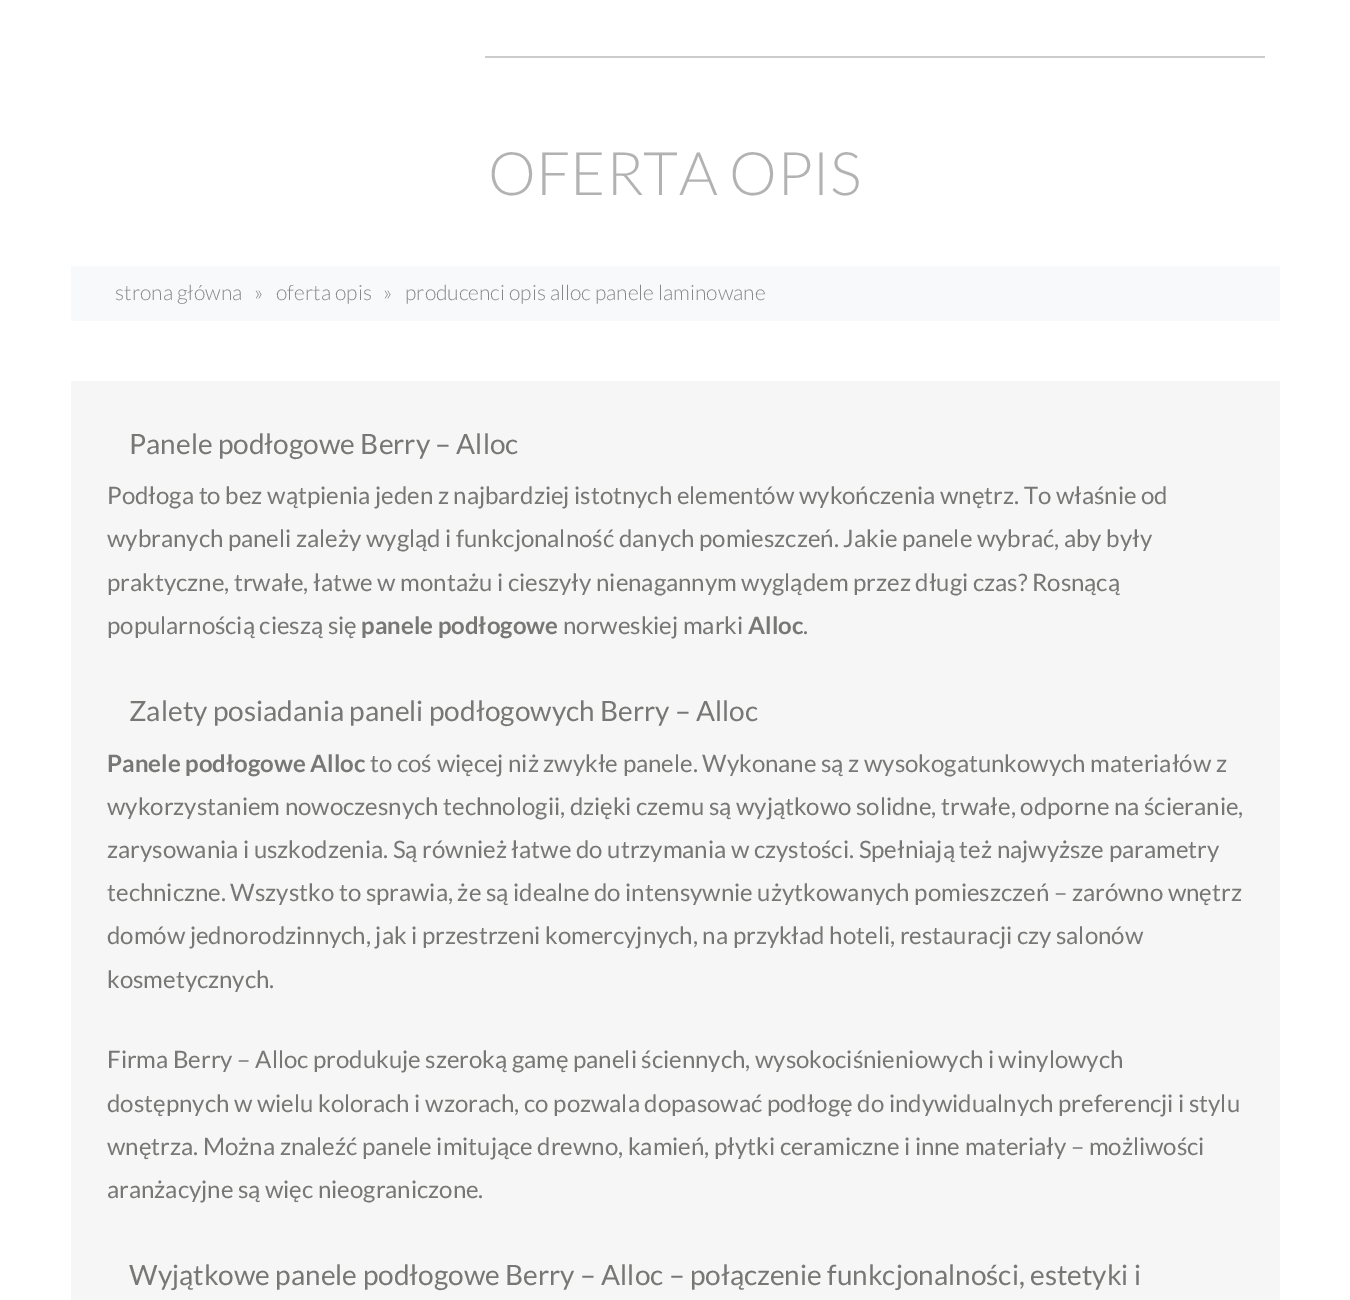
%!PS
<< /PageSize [1350 1300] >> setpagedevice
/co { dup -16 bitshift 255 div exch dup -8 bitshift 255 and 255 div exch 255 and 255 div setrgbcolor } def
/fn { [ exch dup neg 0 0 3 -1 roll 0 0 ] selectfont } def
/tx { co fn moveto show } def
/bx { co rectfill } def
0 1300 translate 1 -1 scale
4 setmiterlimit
0 0 1350 1300 16#FFFFFF bx
485 56 780 2 16#CCCCCC bx
71 266 1209 55 16#F8F9FA bx
71 381 1209 919 16#F6F6F6 bx
(OFERTA OPIS) 488 195 /Lato-Light 60 16#B2B2B2 tx
(strona główna) 115 300 /Lato-Light 21 16#878787 tx
(») 254 300 /Lato-Light 21 16#878787 tx
(oferta opis) 276 300 /Lato-Light 21 16#878787 tx
(») 383 300 /Lato-Light 21 16#878787 tx
(producenci opis alloc panele laminowane) 405 300 /Lato-Light 21 16#878787 tx
(Panele podłogowe Berry – Alloc) 129 454 /Lato-Regular 28 16#777775 tx
(Podłoga to bez wątpienia jeden z najbardziej istotnych elementów wykończenia wnętrz. To właśnie od) 107 504 /Lato-Regular 24 16#777775 tx
(wybranych paneli zależy wygląd i funkcjonalność danych pomieszczeń. Jakie panele wybrać, aby były) 107 547 /Lato-Regular 24 16#777775 tx
(praktyczne, trwałe, łatwe w montażu i cieszyły nienagannym wyglądem przez długi czas? Rosnącą) 107 591 /Lato-Regular 24 16#777775 tx
(popularnością cieszą się) 107 634 /Lato-Regular 24 16#777775 tx
(panele podłogowe) 361 634 /Lato-Bold 24 16#777775 tx
(norweskiej marki) 563 634 /Lato-Regular 24 16#777775 tx
(Alloc) 748 634 /Lato-Bold 24 16#777775 tx
(.) 803 634 /Lato-Regular 24 16#777775 tx
(Zalety posiadania paneli podłogowych Berry – Alloc) 129 721 /Lato-Regular 28 16#777775 tx
(Panele podłogowe Alloc) 107 772 /Lato-Bold 24 16#777775 tx
(to coś więcej niż zwykłe panele. Wykonane są z wysokogatunkowych materiałów z) 370 772 /Lato-Regular 24 16#777775 tx
(wykorzystaniem nowoczesnych technologii, dzięki czemu są wyjątkowo solidne, trwałe, odporne na ścieranie,) 107 815 /Lato-Regular 24 16#777775 tx
(zarysowania i uszkodzenia. Są również łatwe do utrzymania w czystości. Spełniają też najwyższe parametry) 107 858 /Lato-Regular 24 16#777775 tx
(techniczne. Wszystko to sprawia, że są idealne do intensywnie użytkowanych pomieszczeń – zarówno wnętrz) 107 901 /Lato-Regular 24 16#777775 tx
(domów jednorodzinnych, jak i przestrzeni komercyjnych, na przykład hoteli, restauracji czy salonów) 107 944 /Lato-Regular 24 16#777775 tx
(kosmetycznych.) 107 988 /Lato-Regular 24 16#777775 tx
(Firma Berry – Alloc produkuje szeroką gamę paneli ściennych, wysokociśnieniowych i winylowych) 107 1068 /Lato-Regular 24 16#777775 tx
(dostępnych w wielu kolorach i wzorach, co pozwala dopasować podłogę do indywidualnych preferencji i stylu) 107 1112 /Lato-Regular 24 16#777775 tx
(wnętrza. Można znaleźć panele imitujące drewno, kamień, płytki ceramiczne i inne materiały – możliwości) 107 1155 /Lato-Regular 24 16#777775 tx
(aranżacyjne są więc nieograniczone.) 107 1198 /Lato-Regular 24 16#777775 tx
(Wyjątkowe panele podłogowe Berry – Alloc – połączenie funkcjonalności, estetyki i) 129 1285 /Lato-Regular 28 16#777775 tx
showpage
